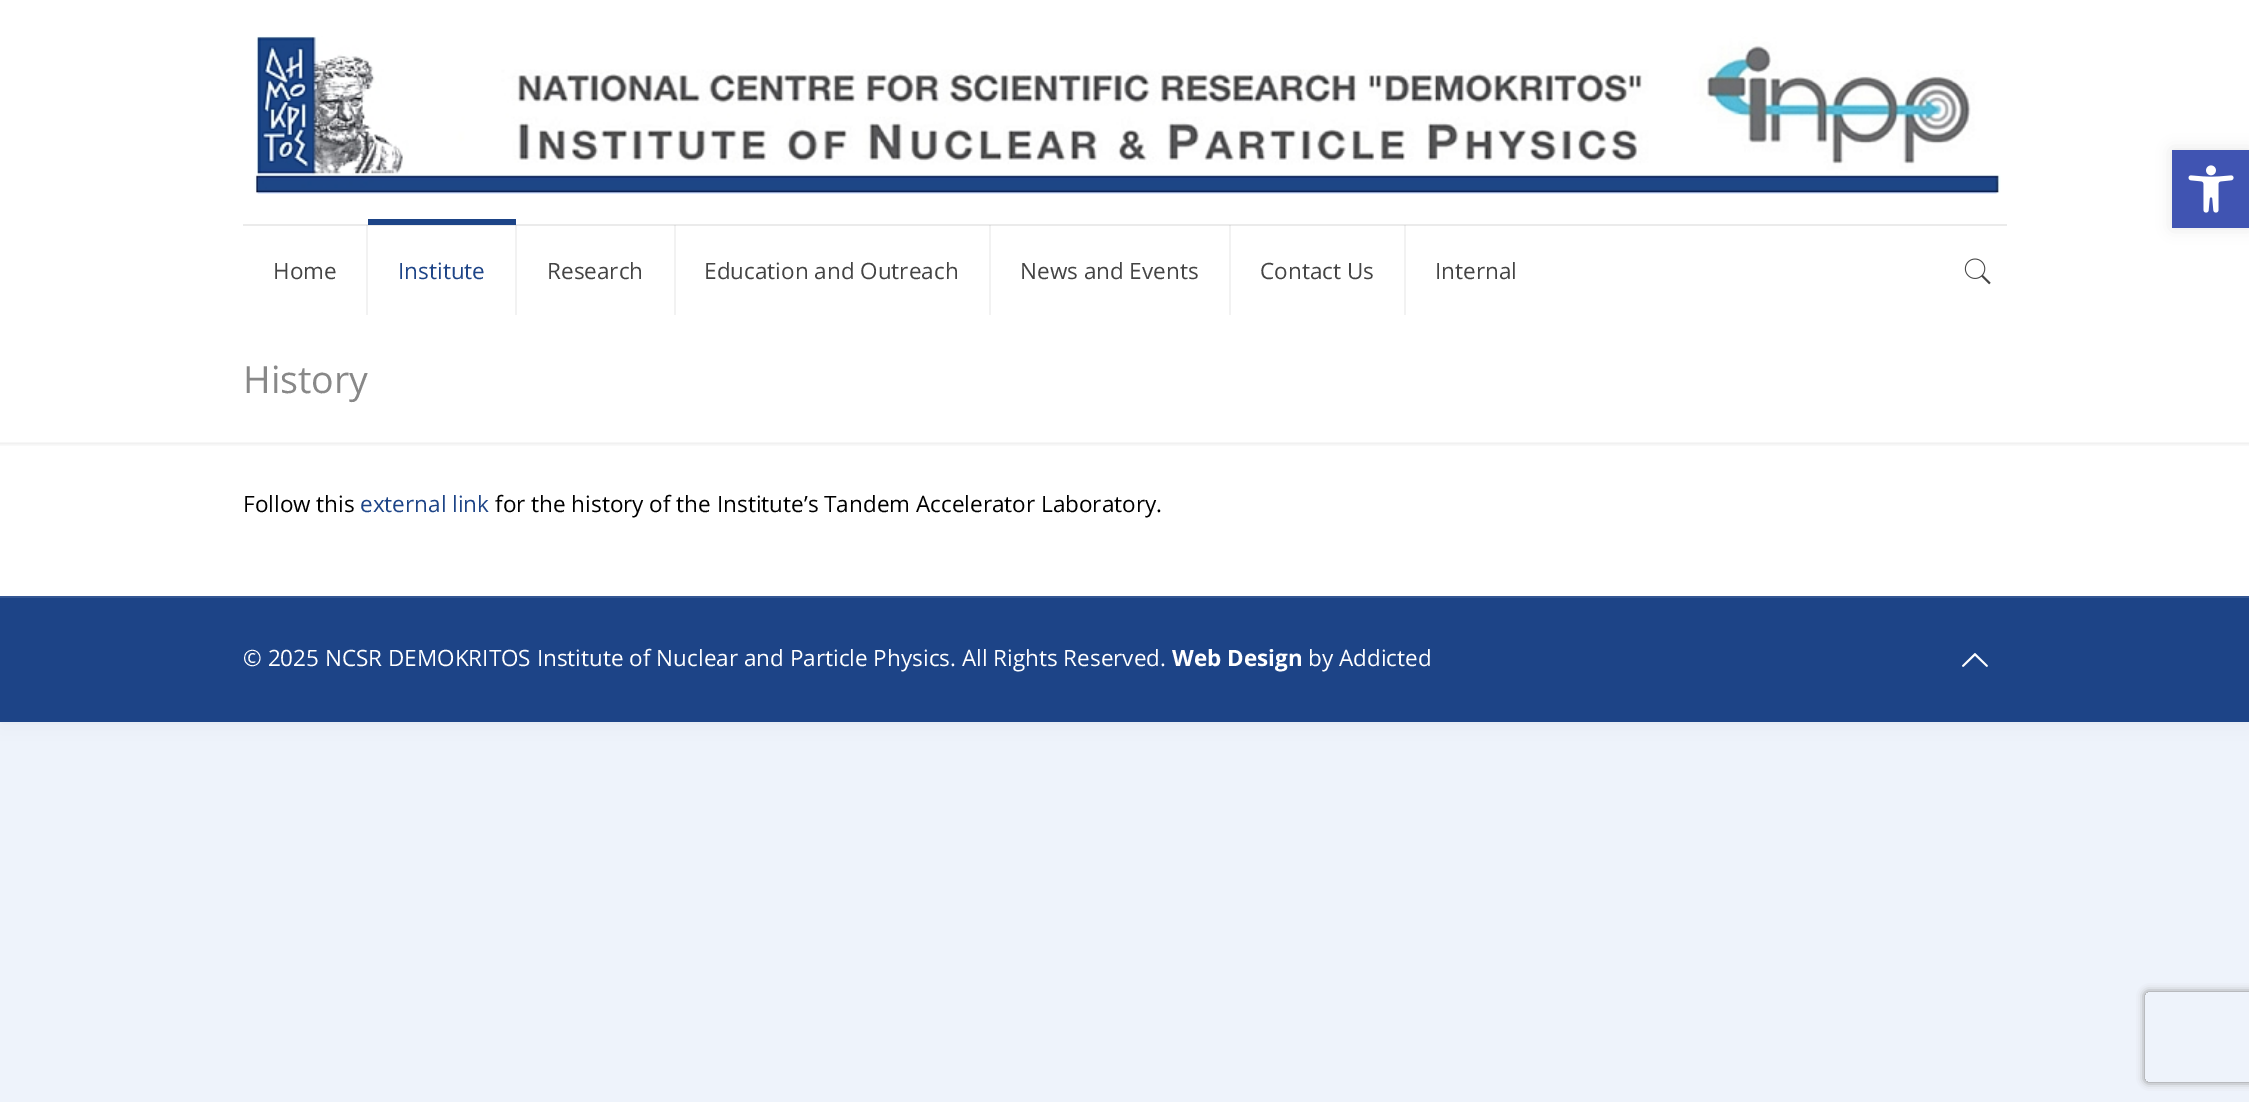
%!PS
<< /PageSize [2249 1102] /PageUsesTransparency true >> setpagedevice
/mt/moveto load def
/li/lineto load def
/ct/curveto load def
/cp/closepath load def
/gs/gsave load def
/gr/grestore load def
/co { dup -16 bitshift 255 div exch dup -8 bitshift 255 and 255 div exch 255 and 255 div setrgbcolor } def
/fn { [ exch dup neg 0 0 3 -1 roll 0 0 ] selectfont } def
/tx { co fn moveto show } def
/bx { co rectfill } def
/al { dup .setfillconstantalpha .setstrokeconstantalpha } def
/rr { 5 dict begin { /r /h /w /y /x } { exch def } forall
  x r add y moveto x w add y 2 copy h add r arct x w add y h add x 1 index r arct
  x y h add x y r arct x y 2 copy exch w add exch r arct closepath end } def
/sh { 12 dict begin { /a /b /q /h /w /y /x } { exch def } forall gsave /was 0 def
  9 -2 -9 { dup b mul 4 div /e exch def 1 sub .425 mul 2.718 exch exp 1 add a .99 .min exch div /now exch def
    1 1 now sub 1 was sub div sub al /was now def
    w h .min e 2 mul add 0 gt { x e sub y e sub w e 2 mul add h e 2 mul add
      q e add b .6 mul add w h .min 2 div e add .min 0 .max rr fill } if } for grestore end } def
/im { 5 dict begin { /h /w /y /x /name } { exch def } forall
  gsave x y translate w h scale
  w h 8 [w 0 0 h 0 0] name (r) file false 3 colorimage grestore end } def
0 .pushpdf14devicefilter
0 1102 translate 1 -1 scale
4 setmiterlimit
0 0 2249 1102 16#EEF3FB bx
16#000000 co
0 0 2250 722 0 11 .06 sh
0 0 2249 596 16#FFFFFF bx
16#000000 co
2172 150 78 78 0 7.5 .1 sh
2172 150 77 78 16#4054B2 bx
(media/1.raw) 2188 165 46 48 im
1404 225 2 90 16#F2F2F2 bx
1229 225 2 90 16#F2F2F2 bx
989 225 2 90 16#F2F2F2 bx
674 225 2 90 16#F2F2F2 bx
515 225 2 90 16#F2F2F2 bx
366 225 2 90 16#F2F2F2 bx
243 224 1764 2 16#EBEBEB bx
1404 225 2 1 16#DFDFDF bx
1229 225 2 1 16#DFDFDF bx
989 225 2 1 16#DFDFDF bx
674 225 2 1 16#DFDFDF bx
515 225 2 1 16#DFDFDF bx
366 225 2 1 16#DFDFDF bx
(media/2.raw) 254 36 1747 158 im
368 219 148 6 16#1D4487 bx
(media/3.raw) 1964 258 27 27 im
(media/4.raw) 0 442 2249 4 im
0 598 2249 124 16#1D4487 bx
0 596 2249 2 16#345793 bx
(media/5.raw) 1962 653 26 14 im
gs
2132 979 mt 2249 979 li 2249 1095 li 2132 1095 li cp 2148 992 mt 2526 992 li 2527.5 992 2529 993.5 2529 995 ct 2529 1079 li 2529 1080.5 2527.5 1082 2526 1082 ct 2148 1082 li 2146.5 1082 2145 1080.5 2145 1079 ct 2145 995 li 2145 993.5 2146.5 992 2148 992 ct cp eoclip newpath
16#808080 co
2145 992 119 90 3 4 1 sh
gr
(Home) 273 279 /OpenSans-Regular 22.5 16#444444 tx
(Institute) 398 279 /OpenSans-Regular 22.5 16#1D4487 tx
(Research) 547 279 /OpenSans-Regular 22.5 16#444444 tx
(Education and Outreach) 704 279 /OpenSans-Regular 22.5 16#444444 tx
(News and Events) 1020 279 /OpenSans-Regular 22.5 16#444444 tx
(Contact Us) 1260 279 /OpenSans-Regular 22.5 16#444444 tx
(Internal) 1435 279 /OpenSans-Regular 22.5 16#444444 tx
(History) 243 393 /OpenSans-Regular 37.5 16#888888 tx
(Follow this) 243 512 /OpenSans-Regular 22.5 16#000000 tx
(external link) 360 512 /OpenSans-Regular 22.5 16#1D4487 tx
(for the history of the Institute’s Tandem Accelerator Laboratory.) 495 512 /OpenSans-Regular 22.5 16#000000 tx
(© 2025 NCSR DEMOKRITOS Institute of Nuclear and Particle Physics. All Rights Reserved.) 243 666 /OpenSans-Regular 22.5 16#FFFFFF tx
(Web Design) 1172 666 /OpenSans-Bold 22.5 16#FFFFFF tx
(by Addicted) 1308 666 /OpenSans-Regular 22.5 16#FFFFFF tx
.poppdf14devicefilter showpage
